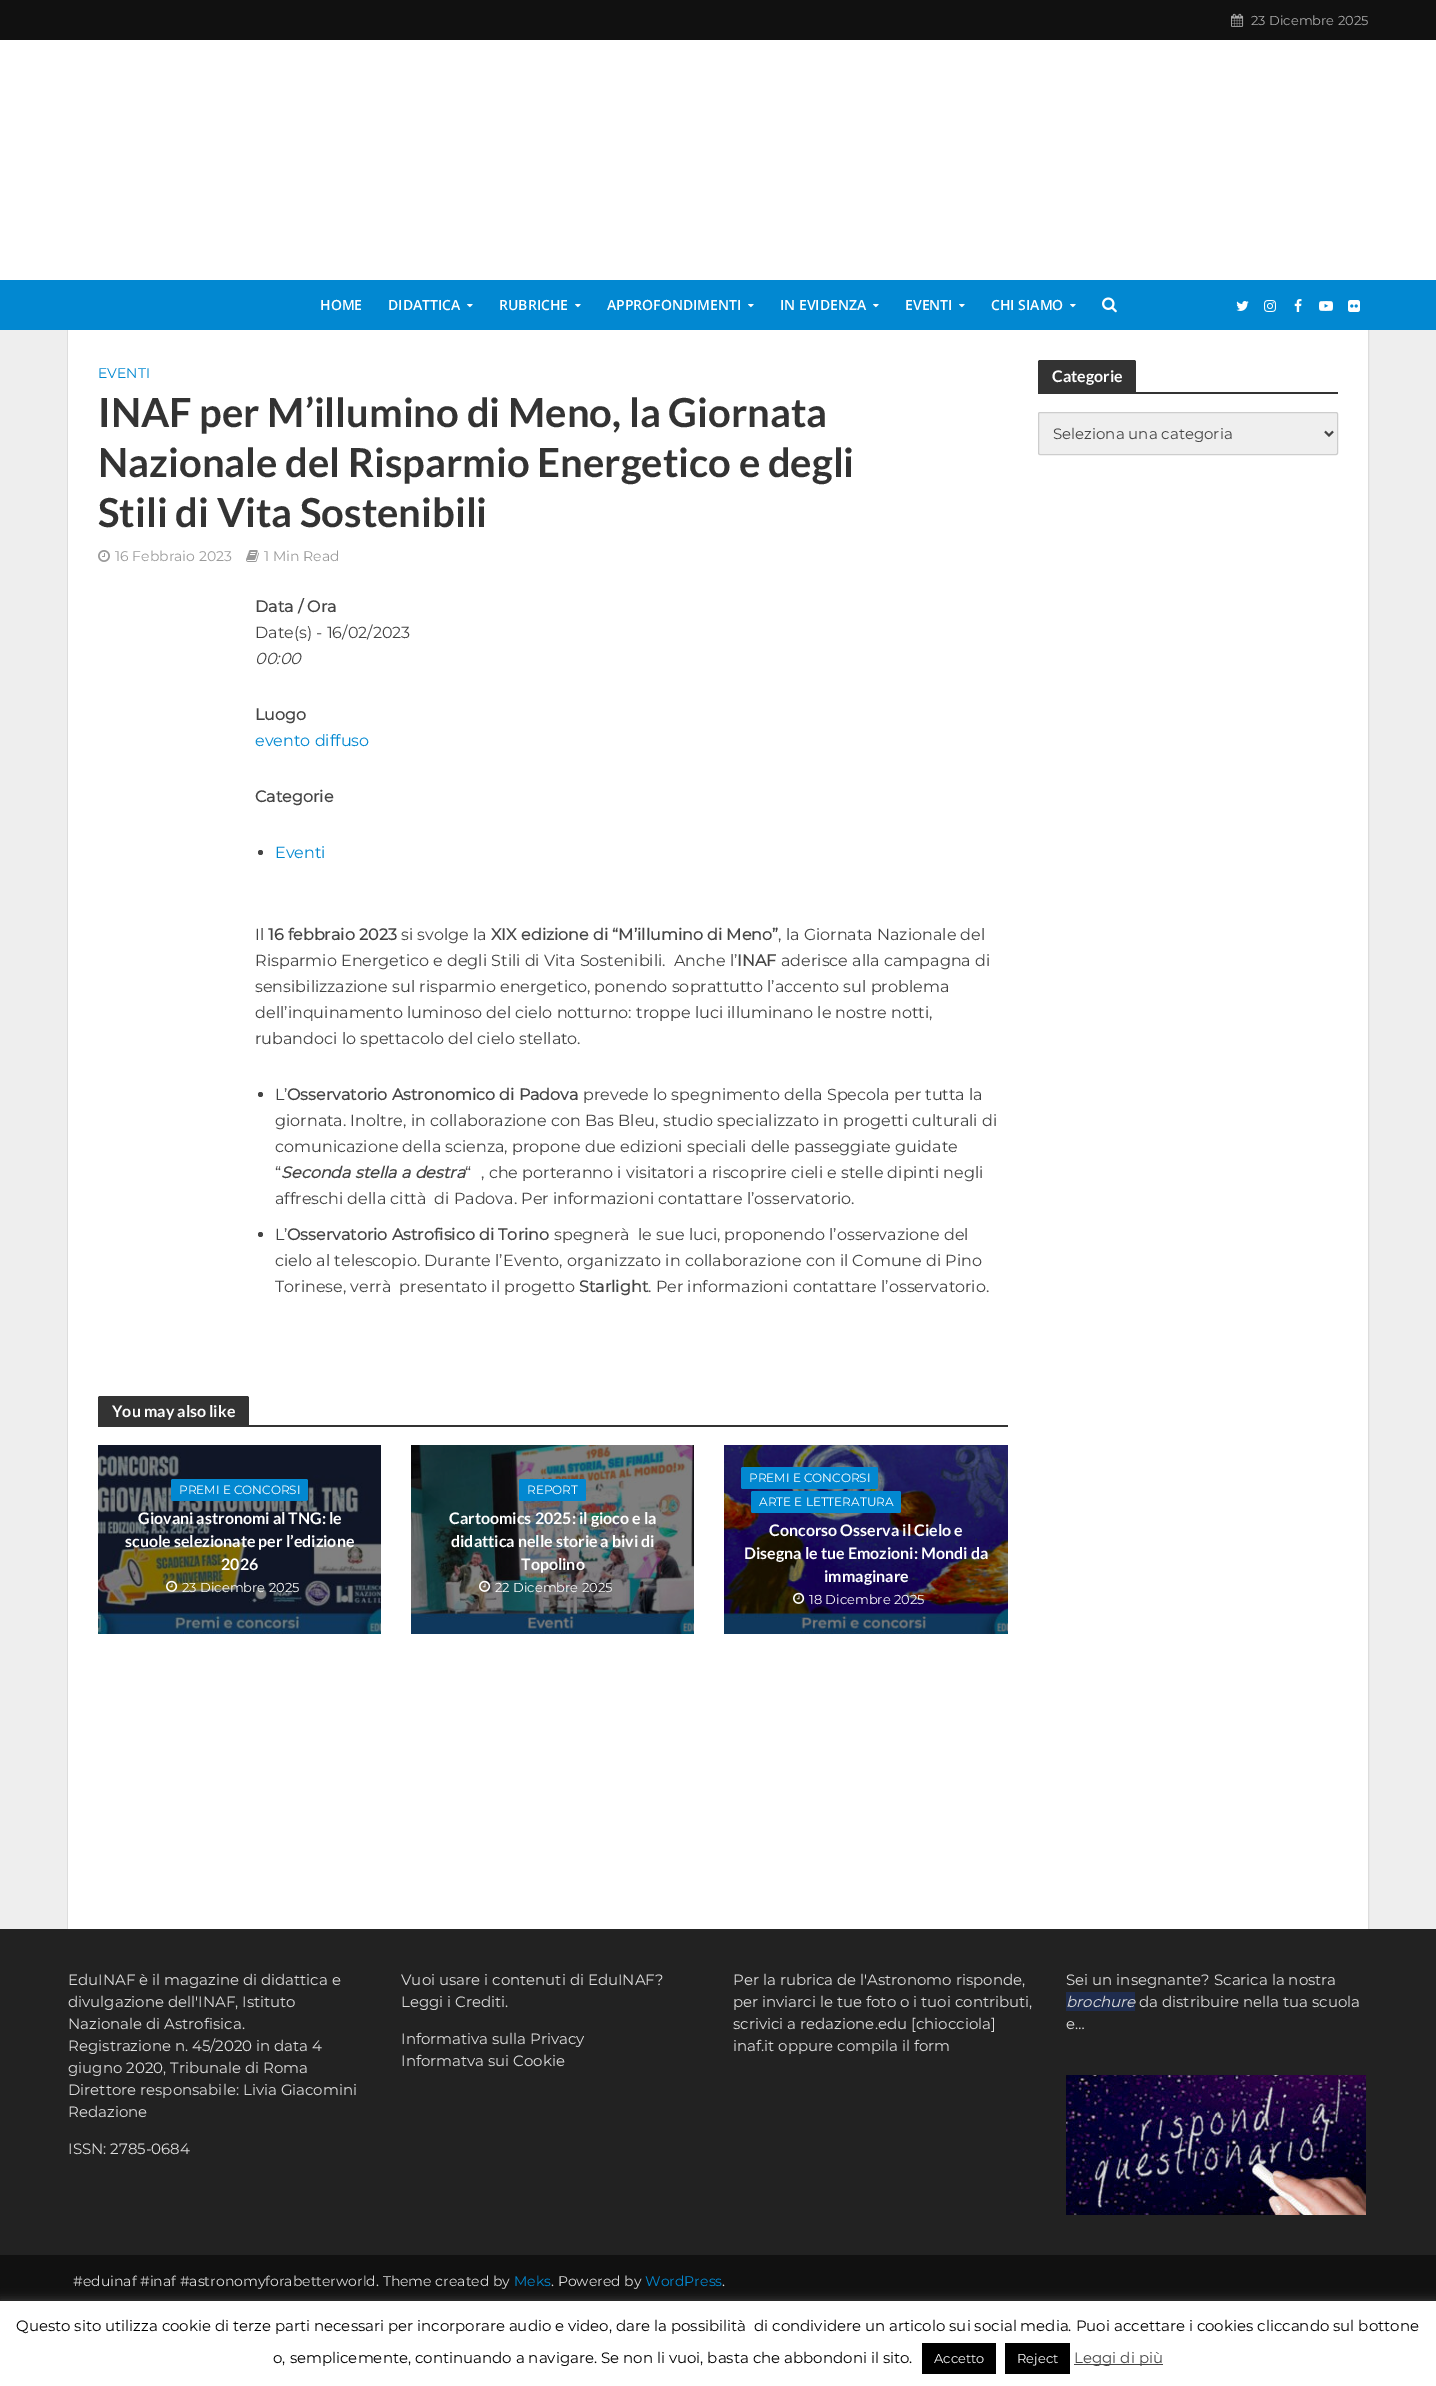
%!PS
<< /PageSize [1436 2386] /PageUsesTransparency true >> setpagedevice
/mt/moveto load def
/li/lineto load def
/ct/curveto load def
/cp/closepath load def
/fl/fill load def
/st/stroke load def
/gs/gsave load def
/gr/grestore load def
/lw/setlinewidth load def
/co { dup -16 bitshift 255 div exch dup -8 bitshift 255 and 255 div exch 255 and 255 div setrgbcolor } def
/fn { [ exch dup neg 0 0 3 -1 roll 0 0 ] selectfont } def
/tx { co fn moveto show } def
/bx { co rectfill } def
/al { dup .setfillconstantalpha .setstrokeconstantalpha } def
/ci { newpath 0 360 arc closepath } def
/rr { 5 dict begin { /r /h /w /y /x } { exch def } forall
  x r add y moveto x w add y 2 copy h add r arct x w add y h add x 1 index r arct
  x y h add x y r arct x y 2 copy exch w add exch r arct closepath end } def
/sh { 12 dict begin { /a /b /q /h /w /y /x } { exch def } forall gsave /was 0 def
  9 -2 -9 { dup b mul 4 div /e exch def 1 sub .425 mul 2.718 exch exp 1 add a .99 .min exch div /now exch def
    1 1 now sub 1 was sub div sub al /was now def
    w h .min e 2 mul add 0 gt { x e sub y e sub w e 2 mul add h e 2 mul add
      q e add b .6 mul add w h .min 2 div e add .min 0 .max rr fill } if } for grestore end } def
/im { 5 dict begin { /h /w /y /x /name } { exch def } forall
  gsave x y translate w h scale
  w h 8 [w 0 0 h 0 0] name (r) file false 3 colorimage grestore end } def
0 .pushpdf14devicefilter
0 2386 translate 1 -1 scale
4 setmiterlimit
0 0 1436 2386 16#EEEEEE bx
0 0 1436 40 16#111111 bx
(media/1.raw) 1231 13 13 14 im
0 40 1436 240 16#FFFFFF bx
0 1929 1436 326 16#222222 bx
0.1 al
16#444444 co
67.5 329.5 1301 1600 rectstroke
1 al
0 280 1436 50 16#0288D1 bx
(media/2.raw) 467 304 6 4 im
(media/2.raw) 575 304 6 4 im
(media/2.raw) 748 304 6 4 im
(media/2.raw) 873 304 6 4 im
(media/2.raw) 959 304 6 4 im
(media/2.raw) 1070 304 6 4 im
(media/3.raw) 1102 297 15 16 im
(media/4.raw) 1236 301 13 10 im
(media/5.raw) 1264 300 12 12 im
(media/6.raw) 1294 299 8 13 im
(media/7.raw) 1319 301 14 10 im
(media/8.raw) 1348 300 12 12 im
68 330 1300 1599 16#FFFFFF bx
(media/9.raw) 98 550 12 12 im
(media/10.raw) 246 550 13 12 im
16#444444 co
260.5 852.5 2.5 ci fl
260.5 1094.5 2.5 ci fl
260.5 1234.5 2.5 ci fl
16#333333 co
100 1396 mt 247 1396 li 248 1396 249 1397 249 1398 ct 249 1425 li 98 1425 li 98 1398 li 98 1397 99 1396 100 1396 ct cp fl
98 1425 910 2 16#333333 bx
(media/11.raw) 98 1445 283 189 im
16#0288D1 co
171 1479 137 22 2 rr fl
(media/12.raw) 166 1580 12 12 im
(media/13.raw) 411 1445 283 189 im
519 1479 67 22 2 rr fl
(media/14.raw) 479 1580 12 12 im
(media/15.raw) 724 1445 284 189 im
741 1467 137 22 2 rr fl
751 1491 150 22 2 rr fl
(media/16.raw) 793 1592 12 12 im
16#333333 co
1040 360 mt 1134 360 li 1135 360 1136 361 1136 362 ct 1136 392 li 1038 392 li 1038 362 li 1038 361 1039 360 1040 360 ct cp fl
1038 392 300 2 16#333333 bx
16#EFEFEF co
1038.5 412.5 299 42 1.5 rr gs fl gr
16#CDCDCD co
st
16#444444 co
2 lw
1325 431.5 mt 1329 435.5 li 1333 431.5 li st
1066 1992 69 19 16#1F2C4E bx
(media/17.raw) 1066 2075 300 140 im
0 2255 1436 46 16#111111 bx
16#ACABAB co
0 2300 1436 85 0 5 .3 sh
0 2301 1436 85 16#FFFFFF bx
922 2343 74 31 16#000000 bx
1005 2343 65 31 16#000000 bx
1074 2364 89 1 16#444444 bx
(23 Dicembre 2025) 1251 25 /Montserrat-Thin 13 16#AAAAAA tx
(HOME) 320 310 /OpenSans-SemiBold 14 16#FFFFFF tx
(DIDATTICA) 388 310 /OpenSans-SemiBold 14 16#FFFFFF tx
(RUBRICHE) 499 310 /OpenSans-SemiBold 14 16#FFFFFF tx
(APPROFONDIMENTI) 607 310 /OpenSans-SemiBold 14 16#FFFFFF tx
(IN EVIDENZA) 780 310 /OpenSans-SemiBold 14 16#FFFFFF tx
(EVENTI) 905 310 /OpenSans-SemiBold 14 16#FFFFFF tx
(CHI SIAMO) 991 310 /OpenSans-SemiBold 14 16#FFFFFF tx
(EVENTI) 98 378 /Montserrat-Thin 14 16#0288D1 tx
(INAF per M’illumino di Meno, la Giornata) 98 427 /Lato-Bold 40 16#333333 tx
(Nazionale del Risparmio Energetico e degli) 98 477 /Lato-Bold 40 16#333333 tx
(Stili di Vita Sostenibili) 98 527 /Lato-Bold 40 16#333333 tx
(16 Febbraio 2023) 115 561 /Montserrat-Thin 14 16#999999 tx
(1 Min Read) 264 561 /Montserrat-Thin 14 16#999999 tx
(Data / Ora) 255 612 /Montserrat-Bold 16 16#444444 tx
(Date\(s\) - 16/02/2023) 255 638 /Montserrat-Thin 16 16#444444 tx
(00:00) 255 664 /Montserrat-ThinItalic 16 16#444444 tx
(Luogo) 255 720 /Montserrat-Bold 16 16#444444 tx
(evento diffuso) 255 746 /Montserrat-Thin 16 16#0288D1 tx
(Categorie) 255 802 /Montserrat-Bold 16 16#444444 tx
(Eventi) 275 858 /Montserrat-Thin 16 16#0288D1 tx
(Il) 255 940 /Montserrat-Thin 16 16#444444 tx
(16 febbraio 2023) 268 940 /Montserrat-Bold 16 16#444444 tx
(si svolge la) 401 940 /Montserrat-Thin 16 16#444444 tx
(XIX edizione di “M’illumino di Meno”) 491 940 /Montserrat-Bold 16 16#444444 tx
(, la Giornata Nazionale del) 778 940 /Montserrat-Thin 16 16#444444 tx
(Risparmio Energetico e degli Stili di Vita Sostenibili.  Anche l’) 255 966 /Montserrat-Thin 16 16#444444 tx
(INAF) 737 966 /Montserrat-Bold 16 16#444444 tx
(aderisce alla campagna di) 781 966 /Montserrat-Thin 16 16#444444 tx
(sensibilizzazione sul risparmio energetico, ponendo soprattutto l’accento sul problema) 255 992 /Montserrat-Thin 16 16#444444 tx
(dell’inquinamento luminoso del cielo notturno: troppe luci illuminano le nostre notti,) 255 1018 /Montserrat-Thin 16 16#444444 tx
(rubandoci lo spettacolo del cielo stellato.) 255 1044 /Montserrat-Thin 16 16#444444 tx
(L’) 275 1100 /Montserrat-Thin 16 16#444444 tx
(Osservatorio Astronomico di Padova) 287 1100 /Montserrat-Bold 16 16#444444 tx
(prevede lo spegnimento della Specola per tutta la) 583 1100 /Montserrat-Thin 16 16#444444 tx
(giornata. Inoltre, in collaborazione con Bas Bleu, studio specializzato in progetti culturali di) 275 1126 /Montserrat-Thin 16 16#444444 tx
(comunicazione della scienza, propone due edizioni speciali delle passeggiate guidate) 275 1152 /Montserrat-Thin 16 16#444444 tx
(“) 275 1178 /Montserrat-Thin 16 16#444444 tx
(Seconda stella a destra) 281 1178 /Montserrat-BoldItalic 16 16#444444 tx
(“) 465 1178 /Montserrat-Thin 16 16#444444 tx
(, che porteranno i visitatori a riscoprire cieli e stelle dipinti negli) 481 1178 /Montserrat-Thin 16 16#444444 tx
(affreschi della città  di Padova. Per informazioni contattare l’osservatorio.) 275 1204 /Montserrat-Thin 16 16#444444 tx
(L’) 275 1240 /Montserrat-Thin 16 16#444444 tx
(Osservatorio Astrofisico di Torino) 287 1240 /Montserrat-Bold 16 16#444444 tx
(spegnerà  le sue luci, proponendo l’osservazione del) 554 1240 /Montserrat-Thin 16 16#444444 tx
(cielo al telescopio. Durante l’Evento, organizzato in collaborazione con il Comune di Pino) 275 1266 /Montserrat-Thin 16 16#444444 tx
(Torinese, verrà  presentato il progetto) 275 1292 /Montserrat-Thin 16 16#444444 tx
(Starlight) 579 1292 /Montserrat-Bold 16 16#444444 tx
(. Per informazioni contattare l’osservatorio.) 648 1292 /Montserrat-Thin 16 16#444444 tx
(You may also like) 112 1417 /Lato-Bold 16 16#FFFFFF tx
(PREMI E CONCORSI) 179 1494 /Montserrat-Thin 12 16#FFFFFF tx
(Giovani astronomi al TNG: le) 138 1524 /Lato-Bold 16 16#FFFFFF tx
(scuole selezionate per l’edizione) 125 1547 /Lato-Bold 16 16#FFFFFF tx
(2026) 221 1570 /Lato-Bold 16 16#FFFFFF tx
(23 Dicembre 2025) 182 1592 /Montserrat-Thin 13 16#FFFFFF tx
(REPORT) 527 1494 /Montserrat-Thin 12 16#FFFFFF tx
(Cartoomics 2025: il gioco e la) 449 1524 /Lato-Bold 16 16#FFFFFF tx
(didattica nelle storie a bivi di) 451 1547 /Lato-Bold 16 16#FFFFFF tx
(Topolino) 521 1570 /Lato-Bold 16 16#FFFFFF tx
(22 Dicembre 2025) 495 1592 /Montserrat-Thin 13 16#FFFFFF tx
(PREMI E CONCORSI) 749 1482 /Montserrat-Thin 12 16#FFFFFF tx
(ARTE E LETTERATURA) 759 1506 /Montserrat-Thin 12 16#FFFFFF tx
(Concorso Osserva il Cielo e) 769 1536 /Lato-Bold 16 16#FFFFFF tx
(Disegna le tue Emozioni: Mondi da) 744 1559 /Lato-Bold 16 16#FFFFFF tx
(immaginare) 824 1582 /Lato-Bold 16 16#FFFFFF tx
(18 Dicembre 2025) 809 1604 /Montserrat-Thin 13 16#FFFFFF tx
(Categorie) 1052 382 /Lato-Bold 16 16#FFFFFF tx
(Seleziona una categoria) 1053 439 /Montserrat-Thin 15 16#444444 tx
(EduINAF è il magazine di didattica e) 68 1985 /Montserrat-Thin 15 16#DDDDDD tx
(divulgazione dell'INAF, Istituto) 68 2007 /Montserrat-Thin 15 16#DDDDDD tx
(Nazionale di Astrofisica.) 68 2029 /Montserrat-Thin 15 16#DDDDDD tx
(Registrazione n. 45/2020 in data 4) 68 2051 /Montserrat-Thin 15 16#DDDDDD tx
(giugno 2020, Tribunale di Roma) 68 2073 /Montserrat-Thin 15 16#DDDDDD tx
(Direttore responsabile: Livia Giacomini) 68 2095 /Montserrat-Thin 15 16#DDDDDD tx
(Redazione) 68 2117 /Montserrat-Thin 15 16#DDDDDD tx
(ISSN: 2785-0684) 68 2154 /Montserrat-Thin 15 16#DDDDDD tx
(Vuoi usare i contenuti di EduINAF?) 401 1985 /Montserrat-Thin 15 16#DDDDDD tx
(Leggi i Crediti.) 401 2007 /Montserrat-Thin 15 16#DDDDDD tx
(Informativa sulla Privacy) 401 2044 /Montserrat-Thin 15 16#DDDDDD tx
(Informatva sui Cookie) 401 2066 /Montserrat-Thin 15 16#DDDDDD tx
(Per la rubrica de l'Astronomo risponde,) 733 1985 /Montserrat-Thin 15 16#DDDDDD tx
(per inviarci le tue foto o i tuoi contributi,) 733 2007 /Montserrat-Thin 15 16#DDDDDD tx
(scrivici a redazione.edu [chiocciola]) 733 2029 /Montserrat-Thin 15 16#DDDDDD tx
(inaf.it oppure compila il form) 733 2051 /Montserrat-Thin 15 16#DDDDDD tx
(Sei un insegnante? Scarica la nostra) 1066 1985 /Montserrat-Thin 15 16#DDDDDD tx
(brochure) 1066 2007 /Montserrat-ThinItalic 15 16#DDDDDD tx
(da distribuire nella tua scuola) 1139 2007 /Montserrat-Thin 15 16#DDDDDD tx
(e…) 1066 2029 /Montserrat-Thin 15 16#DDDDDD tx
(#eduinaf #inaf #astronomyforabetterworld. Theme created by) 73 2286 /Montserrat-Thin 14 16#DDDDDD tx
(Meks) 514 2286 /Montserrat-Thin 14 16#0288D1 tx
(. Powered by) 551 2286 /Montserrat-Thin 14 16#DDDDDD tx
(WordPress) 645 2286 /Montserrat-Thin 14 16#0288D1 tx
(.) 722 2286 /Montserrat-Thin 14 16#DDDDDD tx
(Questo sito utilizza cookie di terze parti necessari per incorporare audio e video, dare la possibilità  di condividere un articolo sui social media. Puoi accettare i cookies cliccando sul bottone) 16 2331 /Montserrat-Thin 15 16#000000 tx
(o, semplicemente, continuando a navigare. Se non li vuoi, basta che abbondoni il sito.) 273 2363 /Montserrat-Thin 15 16#000000 tx
(Accetto) 934 2363 /Montserrat-Thin 13 16#FFFFFF tx
(Reject) 1017 2363 /Montserrat-Thin 13 16#FFFFFF tx
(Leggi di più) 1074 2363 /Montserrat-Thin 15 16#444444 tx
.poppdf14devicefilter showpage
